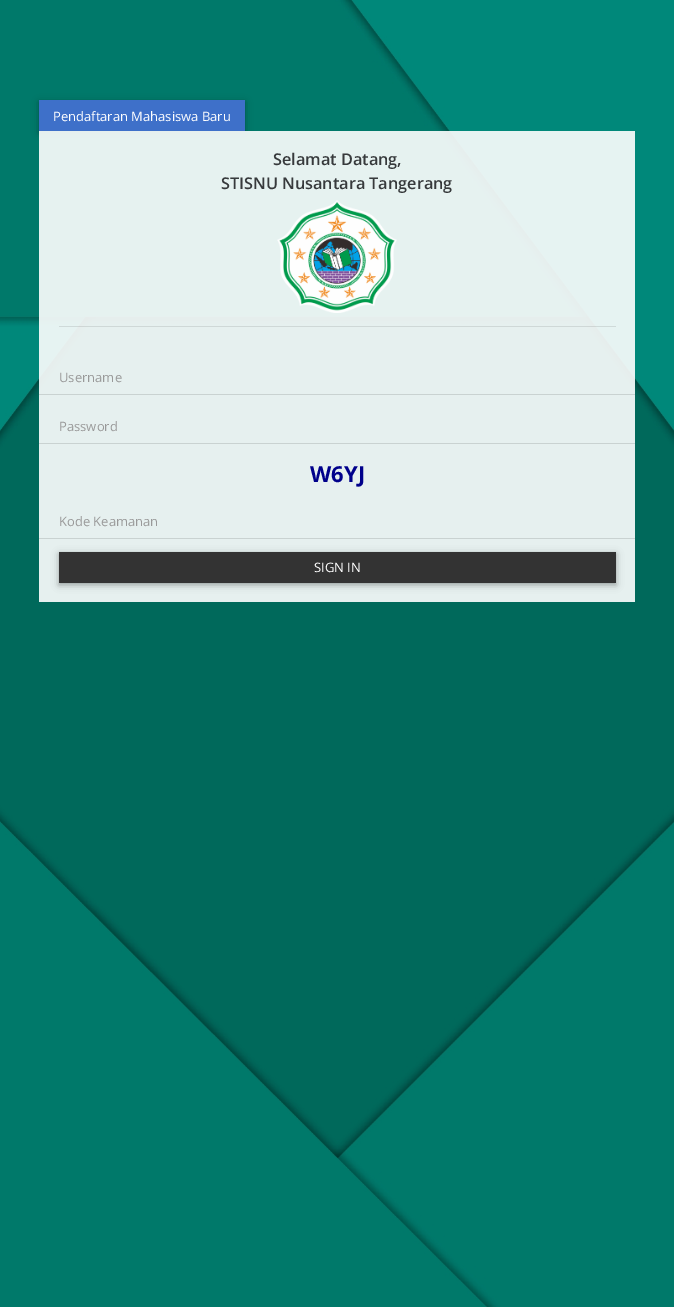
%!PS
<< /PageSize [674 1307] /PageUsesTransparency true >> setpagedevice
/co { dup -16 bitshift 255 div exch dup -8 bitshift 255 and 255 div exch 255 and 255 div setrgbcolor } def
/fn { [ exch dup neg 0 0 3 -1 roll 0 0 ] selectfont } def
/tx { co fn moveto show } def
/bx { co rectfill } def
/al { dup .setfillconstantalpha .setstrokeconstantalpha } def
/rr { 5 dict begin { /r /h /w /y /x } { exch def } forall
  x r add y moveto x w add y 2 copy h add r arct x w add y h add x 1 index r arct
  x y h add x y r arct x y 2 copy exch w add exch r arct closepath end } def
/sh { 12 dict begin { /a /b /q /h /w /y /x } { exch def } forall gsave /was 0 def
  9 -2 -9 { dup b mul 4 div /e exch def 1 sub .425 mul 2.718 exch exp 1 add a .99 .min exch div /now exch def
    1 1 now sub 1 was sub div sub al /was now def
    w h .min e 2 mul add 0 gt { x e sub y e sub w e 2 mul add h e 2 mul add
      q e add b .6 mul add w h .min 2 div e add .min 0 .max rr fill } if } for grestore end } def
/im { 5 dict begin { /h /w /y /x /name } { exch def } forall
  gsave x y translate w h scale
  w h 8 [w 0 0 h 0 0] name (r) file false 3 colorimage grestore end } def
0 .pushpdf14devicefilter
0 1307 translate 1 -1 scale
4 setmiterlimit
0 0 674 1307 16#FFFFFF bx
(media/1.raw) 0 0 674 1307 im
16#000000 co
39 102 206 31 0 4 .2 sh
39 102 206 31 0 2 .15 sh
39 100 206 31 16#3E70C9 bx
0.9 al
39 131 596 471 16#FFFFFF bx
1 al
(media/2.raw) 277 200 120 113 im
0.1 al
59 326 557 1 16#000000 bx
1 al
39 394 596 1 16#C9D2D1 bx
39 443 596 1 16#C9D2D1 bx
39 538 596 1 16#C9D2D1 bx
16#000000 co
59 554 557 31 0 4 .2 sh
59 554 557 31 0 2 .15 sh
59 552 557 31 16#333333 bx
(Pendaftaran Mahasiswa Baru) 53 121 /OpenSans-Regular 13 16#FFFFFF tx
(Selamat Datang,) 273 165 /OpenSans-SemiBold 16.25 16#373A3C tx
(STISNU Nusantara Tangerang) 221 189 /OpenSans-SemiBold 16.25 16#373A3C tx
(Username) 59 382 /OpenSans-Regular 13 16#999999 tx
(Password) 59 431 /OpenSans-Regular 13 16#999999 tx
(W6YJ) 310 482 /OpenSans-Bold 22 16#00008B tx
(Kode Keamanan) 59 526 /OpenSans-Regular 13 16#999999 tx
(SIGN IN) 314 572 /OpenSans-Regular 13 16#FFFFFF tx
.poppdf14devicefilter showpage
